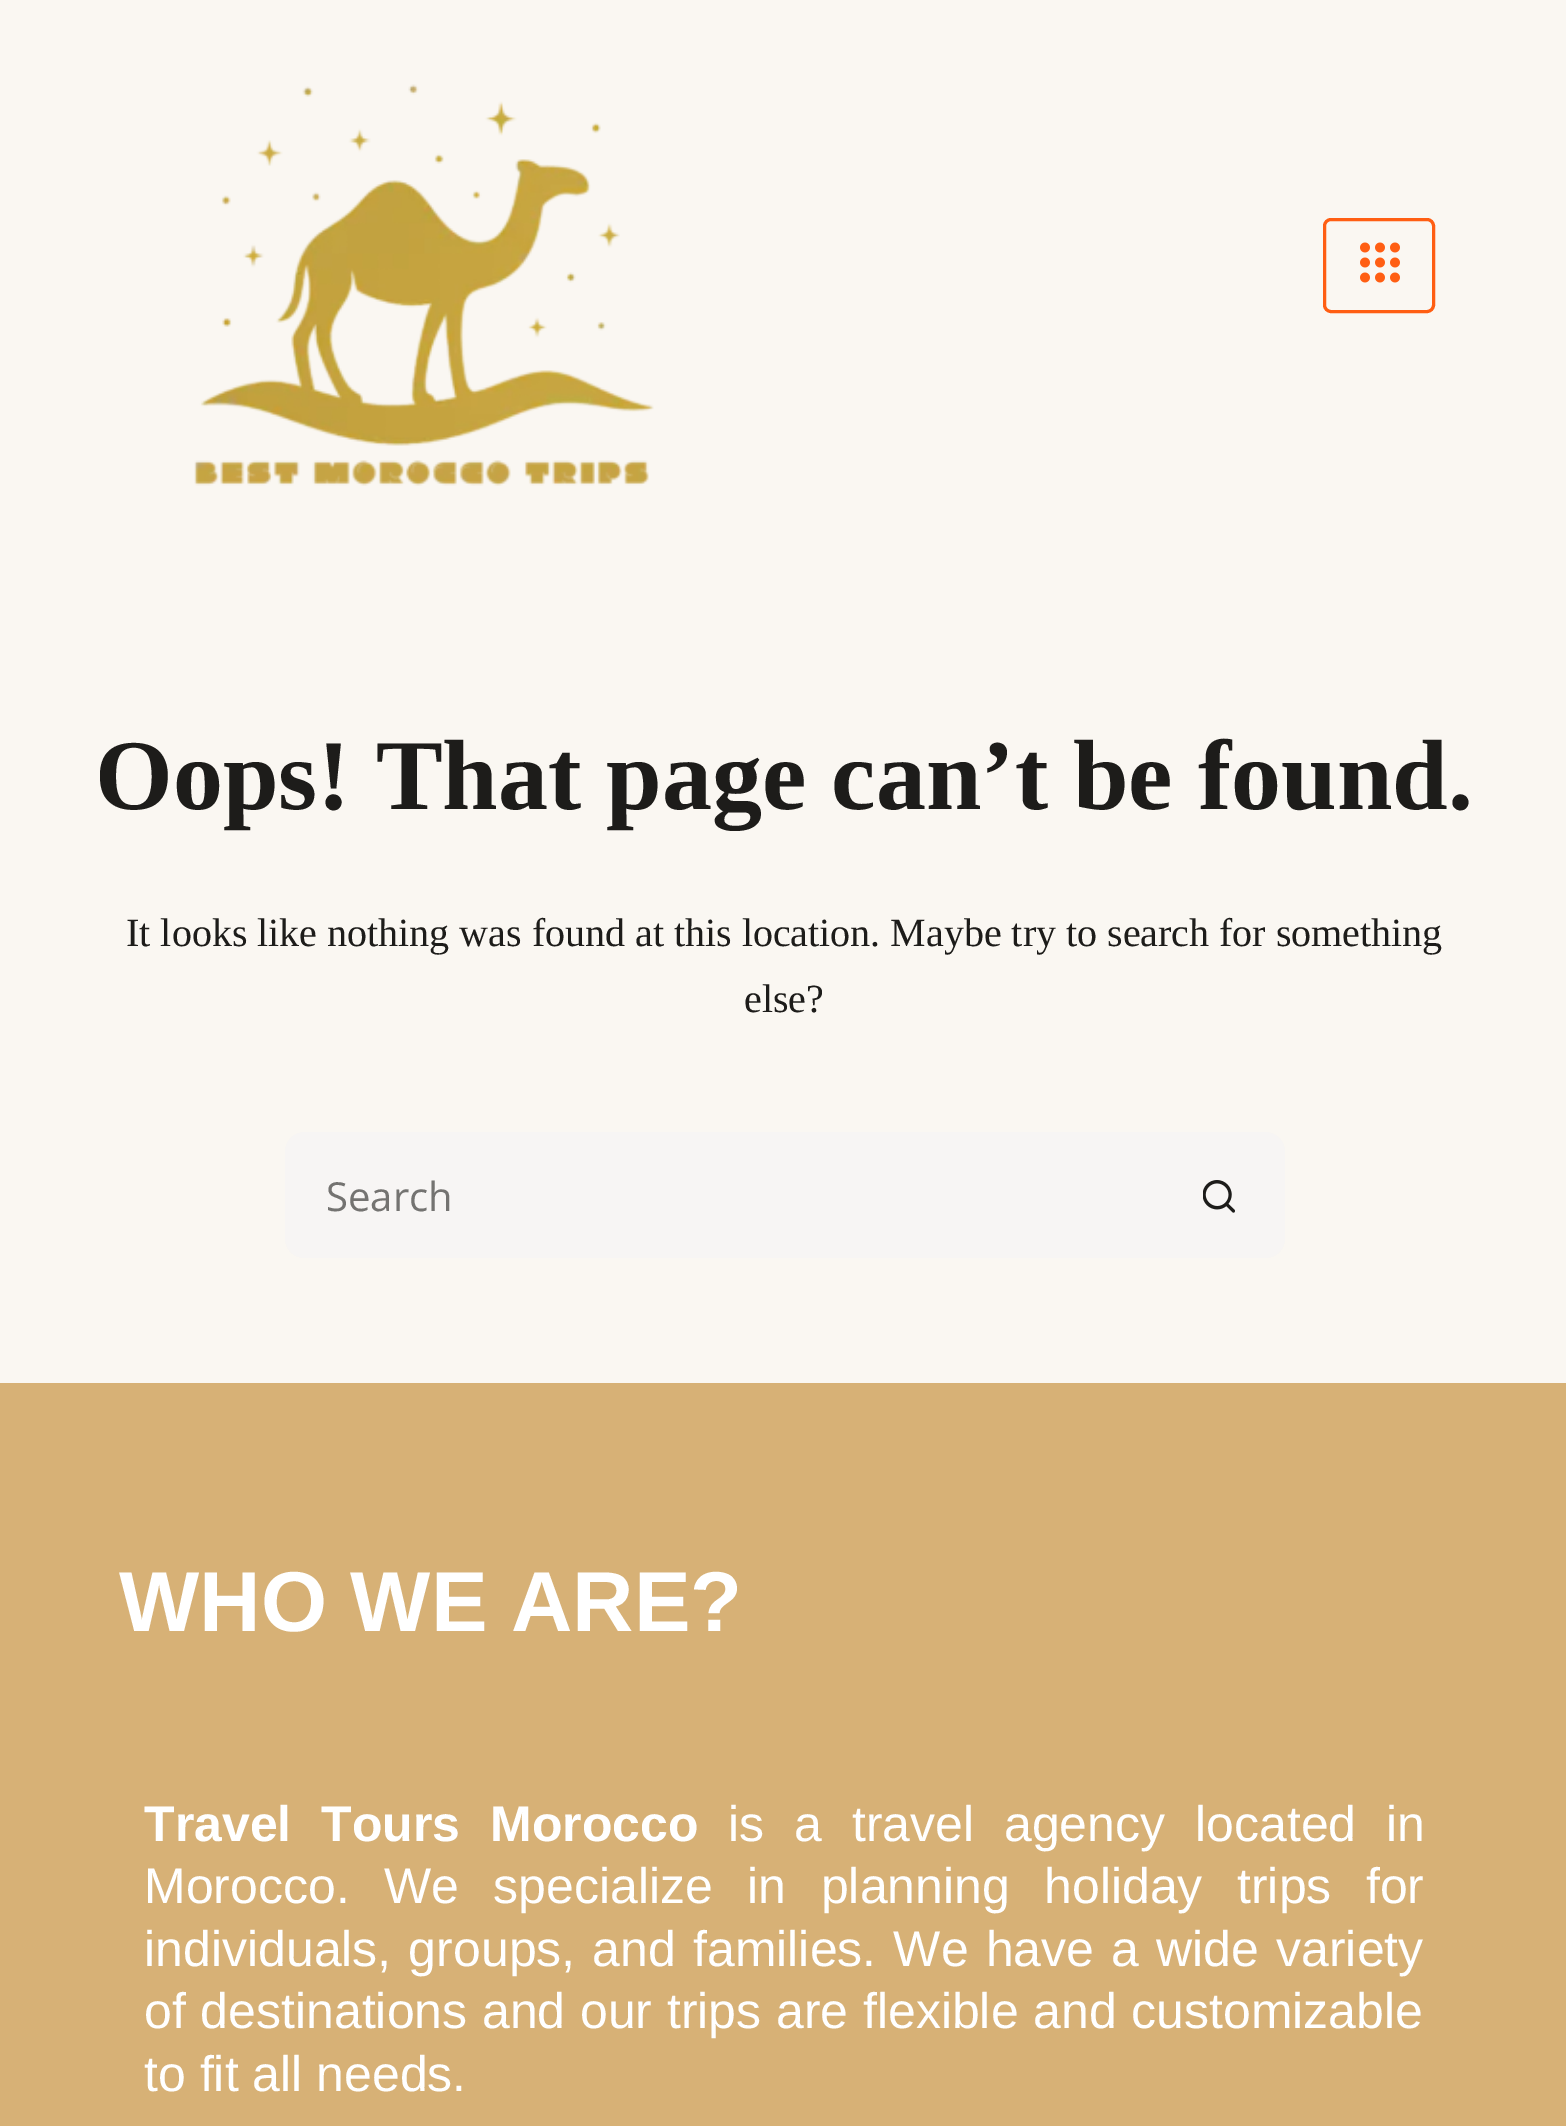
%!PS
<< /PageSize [1566 2126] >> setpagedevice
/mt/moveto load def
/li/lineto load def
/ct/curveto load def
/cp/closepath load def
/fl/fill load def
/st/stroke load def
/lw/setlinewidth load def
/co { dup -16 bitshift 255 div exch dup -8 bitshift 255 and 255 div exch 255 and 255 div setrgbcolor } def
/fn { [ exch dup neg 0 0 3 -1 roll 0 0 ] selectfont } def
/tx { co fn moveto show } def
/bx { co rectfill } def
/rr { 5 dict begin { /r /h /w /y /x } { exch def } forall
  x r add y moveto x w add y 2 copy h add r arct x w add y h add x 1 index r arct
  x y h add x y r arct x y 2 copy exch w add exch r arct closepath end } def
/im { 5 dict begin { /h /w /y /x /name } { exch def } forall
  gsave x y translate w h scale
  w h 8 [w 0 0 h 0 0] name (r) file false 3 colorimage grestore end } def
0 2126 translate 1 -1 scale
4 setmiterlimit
0 0 1566 2126 16#FAF7F2 bx
(media/1.raw) 194 84 460 402 im
16#FF5E13 co
3 lw
1324.5 219.5 109 92 6.5 rr st
(media/2.raw) 1360 242 40 41 im
16#F7F5F4 co
305 1133 mt 1160 1133 li 1160 1258 li 305 1258 li 294 1258 285 1249 285 1238 ct 285 1153 li 285 1142 294 1133 305 1133 ct cp fl
305 1132 mt 1160 1132 li 1160 1258 li 305 1258 li 294 1258 285 1249 285 1238 ct 285 1152 li 285 1141 294 1132 305 1132 ct cp 305 1138 mt 1160 1138 li 1160 1252 li 305 1252 li 297 1252 290 1246 290 1238 ct 290 1152 li 290 1144 297 1138 305 1138 ct cp eofill
1160 1133 mt 1265 1133 li 1276 1133 1285 1142 1285 1153 ct 1285 1238 li 1285 1249 1276 1258 1265 1258 ct 1160 1258 li cp fl
1160 1132 mt 1265 1132 li 1276 1132 1285 1141 1285 1152 ct 1285 1238 li 1285 1249 1276 1258 1265 1258 ct 1160 1258 li cp 1160 1138 mt 1265 1138 li 1273 1138 1280 1144 1280 1152 ct 1280 1238 li 1280 1246 1273 1252 1265 1252 ct 1160 1252 li cp eofill
(media/3.raw) 1203 1180 32 33 im
0 1383 1566 743 16#D7B176 bx
(Oops! That page can’t be found.) 95 809 /LiberationSerif-Bold 100 16#1D1C1A tx
(It looks like nothing was found at this location. Maybe try to search for something) 126 946 /LiberationSerif-Regular 40 16#1D1C1A tx
(else?) 744 1012 /LiberationSerif-Regular 40 16#1D1C1A tx
(Search) 326 1211 /OpenSans-Regular 40 16#747371 tx
(WHO WE ARE?) 119 1631 /LiberationSans-Bold 85 16#FFFFFF tx
/LiberationSans-Bold 50 fn
144 1841 mt 16 0 32 (Travel Tours Morocco) widthshow
/LiberationSans-Regular 50 fn
728 1841 mt 16 0 32 (is a travel agency located in) widthshow
144 1903 mt 20.5 0 32 (Morocco. We specialize in planning holiday trips for) widthshow
144 1966 mt 3.25 0 32 (individuals, groups, and families. We have a wide variety) widthshow
144 2028 mt .75 0 32 (of destinations and our trips are flexible and customizable) widthshow
(to fit all needs.) 144 2091 /LiberationSans-Regular 50 16#FFFFFF tx
showpage
